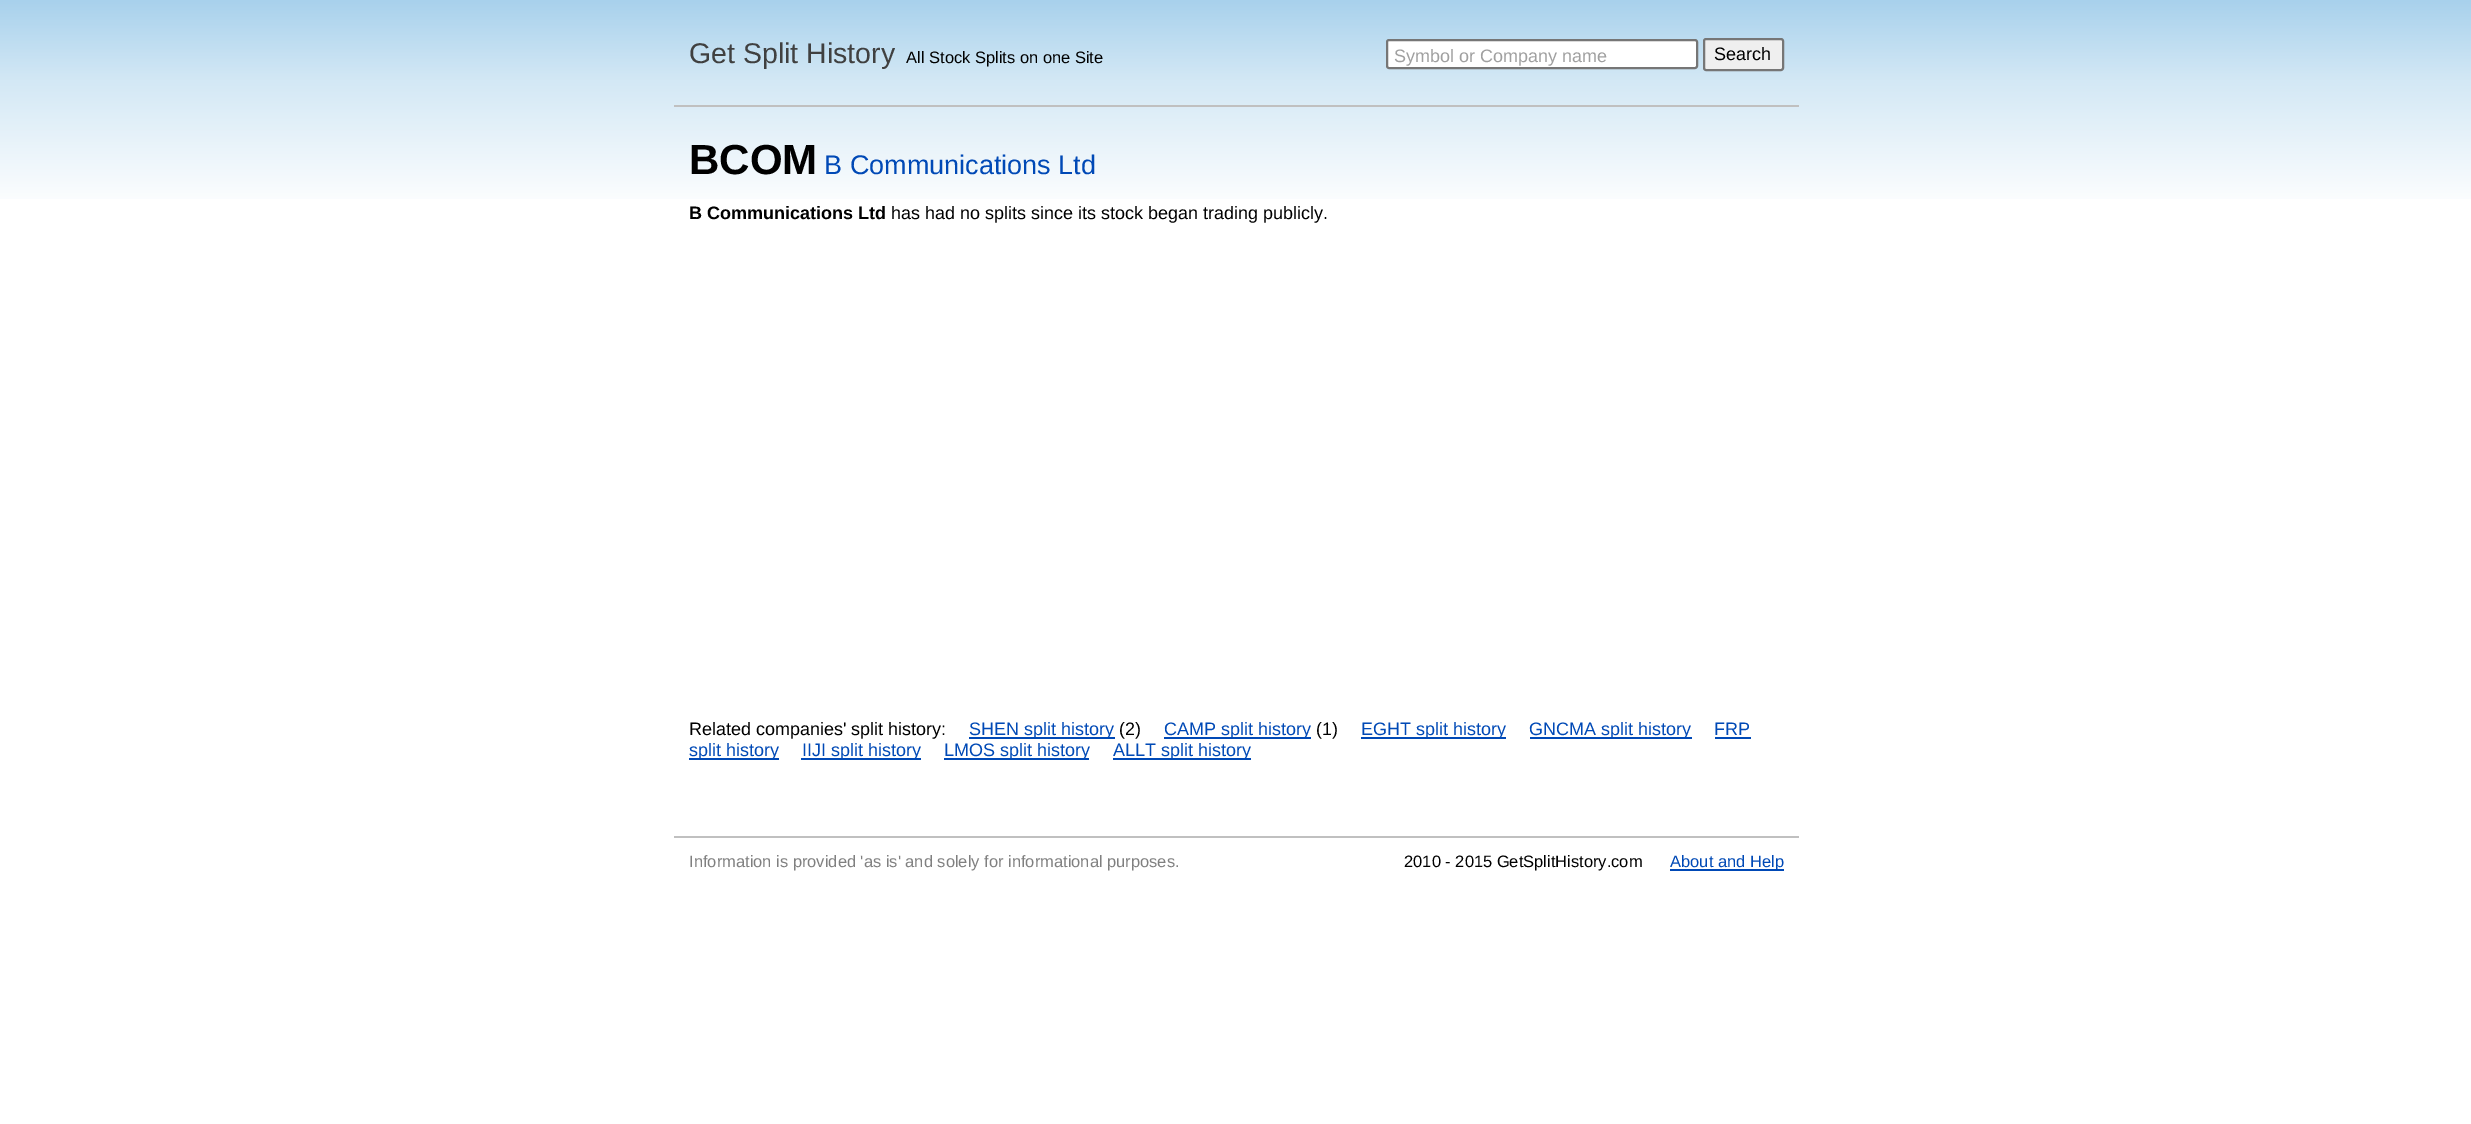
%!PS
<< /PageSize [2471 1124] >> setpagedevice
/fl/fill load def
/st/stroke load def
/gs/gsave load def
/gr/grestore load def
/lw/setlinewidth load def
/co { dup -16 bitshift 255 div exch dup -8 bitshift 255 and 255 div exch 255 and 255 div setrgbcolor } def
/fn { [ exch dup neg 0 0 3 -1 roll 0 0 ] selectfont } def
/tx { co fn moveto show } def
/bx { co rectfill } def
/rr { 5 dict begin { /r /h /w /y /x } { exch def } forall
  x r add y moveto x w add y 2 copy h add r arct x w add y h add x 1 index r arct
  x y h add x y r arct x y 2 copy exch w add exch r arct closepath end } def
/im { 5 dict begin { /h /w /y /x /name } { exch def } forall
  gsave x y translate w h scale
  w h 8 [w 0 0 h 0 0] name (r) file false 3 colorimage grestore end } def
0 1124 translate 1 -1 scale
4 setmiterlimit
0 0 2471 1124 16#FFFFFF bx
(media/1.raw) 0 0 2471 199 im
674 105 1125 2 16#C0C0C0 bx
16#FFFFFF co
1387 40 310 28 2 rr gs fl gr
16#767676 co
2 lw
st
16#EFEFEF co
1704 39 79 31 2 rr gs fl gr
16#767676 co
st
969 737 146 2 16#0049B6 bx
1164 737 147 2 16#0049B6 bx
1361 737 145 2 16#0049B6 bx
1530 737 162 2 16#0049B6 bx
1715 737 36 2 16#0049B6 bx
689 758 90 2 16#0049B6 bx
801 758 120 2 16#0049B6 bx
944 758 145 2 16#0049B6 bx
1113 758 138 2 16#0049B6 bx
674 836 1125 2 16#C0C0C0 bx
1670 869 114 2 16#0049B6 bx
(Get Split History) 689 63 /LiberationSans-Regular 28.5 16#404040 tx
(All Stock Splits on one Site) 906 63 /LiberationSans-Regular 16.5 16#000000 tx
(Search) 1714 60 /LiberationSans-Regular 18 16#000000 tx
(Symbol or Company name) 1394 62 /LiberationSans-Regular 18 16#A0A0A0 tx
(BCOM) 689 174 /LiberationSans-Bold 42 16#000000 tx
(B Communications Ltd) 824 174 /LiberationSans-Regular 27 16#0049B6 tx
(B Communications Ltd) 689 219 /LiberationSans-Bold 18 16#000000 tx
(has had no splits since its stock began trading publicly.) 891 219 /LiberationSans-Regular 18 16#000000 tx
(Related companies' split history:) 689 735 /LiberationSans-Regular 18 16#000000 tx
(SHEN split history) 969 735 /LiberationSans-Regular 18 16#0049B6 tx
(\(2\)) 1119 735 /LiberationSans-Regular 18 16#000000 tx
(CAMP split history) 1164 735 /LiberationSans-Regular 18 16#0049B6 tx
(\(1\)) 1316 735 /LiberationSans-Regular 18 16#000000 tx
(EGHT split history) 1361 735 /LiberationSans-Regular 18 16#0049B6 tx
(GNCMA split history) 1529 735 /LiberationSans-Regular 18 16#0049B6 tx
(FRP) 1714 735 /LiberationSans-Regular 18 16#0049B6 tx
(split history) 689 756 /LiberationSans-Regular 18 16#0049B6 tx
(IIJI split history) 802 756 /LiberationSans-Regular 18 16#0049B6 tx
(LMOS split history) 944 756 /LiberationSans-Regular 18 16#0049B6 tx
(ALLT split history) 1113 756 /LiberationSans-Regular 18 16#0049B6 tx
(Information is provided 'as is' and solely for informational purposes.) 689 867 /LiberationSans-Regular 16.5 16#808080 tx
(2010 - 2015 GetSplitHistory.com) 1404 867 /LiberationSans-Regular 16.5 16#000000 tx
(About and Help) 1670 867 /LiberationSans-Regular 16.5 16#0049B6 tx
showpage
